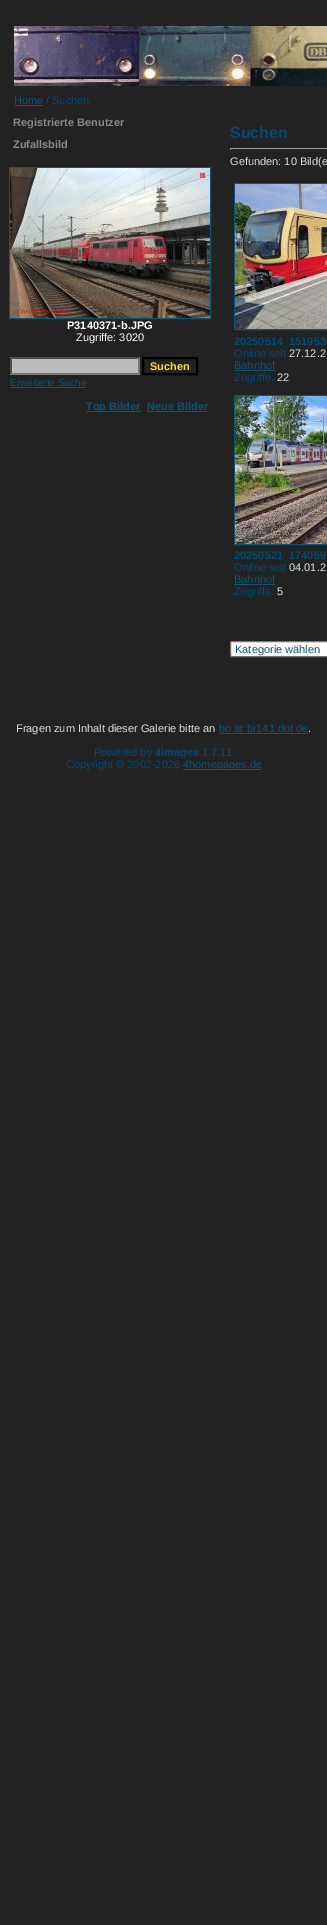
%!PS
<< /PageSize [327 1925] >> setpagedevice
/mt/moveto load def
/li/lineto load def
/cp/closepath load def
/fl/fill load def
/st/stroke load def
/gs/gsave load def
/gr/grestore load def
/lw/setlinewidth load def
/co { dup -16 bitshift 255 div exch dup -8 bitshift 255 and 255 div exch 255 and 255 div setrgbcolor } def
/fn { [ exch dup neg 0 0 3 -1 roll 0 0 ] selectfont } def
/tx { co fn moveto show } def
/bx { co rectfill } def
/rr { 5 dict begin { /r /h /w /y /x } { exch def } forall
  x r add y moveto x w add y 2 copy h add r arct x w add y h add x 1 index r arct
  x y h add x y r arct x y 2 copy exch w add exch r arct closepath end } def
/im { 5 dict begin { /h /w /y /x /name } { exch def } forall
  gsave x y translate w h scale
  w h 8 [w 0 0 h 0 0] name (r) file false 3 colorimage grestore end } def
0 1925 translate 1 -1 scale
4 setmiterlimit
0 0 327 1925 16#222222 bx
(media/1.raw) 14 26 313 60 im
14 105 29 1 16#0F5475 bx
9.5 167.5 201 151 rectstroke
(media/2.raw) 10 168 200 150 im
10 357 130 18 16#BBBBBB bx
16#4F4F4F co
10 357 mt 140 357 li 138 359 li 12 359 li cp fl
16#767676 co
140 357 mt 140 375 li 138 373 li 138 359 li cp fl
140 375 mt 10 375 li 12 373 li 138 373 li cp fl
16#4F4F4F co
10 375 mt 10 357 li 12 359 li 12 373 li cp fl
16#000000 co
2 lw
143 358 54 16 rectstroke
10 387 76 1 16#0F5475 bx
86 411 55 1 16#0F5475 bx
147 411 61 1 16#0F5475 bx
230 148 97 1 16#9F9F9F bx
230 148 1 2 16#9F9F9F bx
16#0F5475 co
1 lw
234.5 183.5 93 146 rectstroke
(media/3.raw) 235 184 92 145 im
234 370 41 1 16#0F5475 bx
234.5 395.5 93 149 rectstroke
(media/4.raw) 235 396 92 148 im
234 584 41 1 16#0F5475 bx
16#FFFFFF co
230.5 641.5 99 15 1.5 rr gs fl gr
16#767676 co
st
219 733 89 1 16#0F5475 bx
183 769 78 1 16#0F5475 bx
(Home) 14 104 /LiberationSans-Regular 11 16#0F5475 tx
(/ Suchen) 46 104 /LiberationSans-Regular 11 16#004C75 tx
(Registrierte Benutzer) 13 126 /LiberationSans-Bold 11 16#888888 tx
(Zufallsbild) 13 148 /LiberationSans-Bold 11 16#888888 tx
(P3140371-b.JPG) 67 329 /LiberationSans-Bold 11 16#FFFFFF tx
(Zugriffe: 3020) 76 341 /LiberationSans-Regular 11 16#FFFFFF tx
(Suchen) 150 370 /LiberationSans-Bold 11 16#FCDC43 tx
(Erweiterte Suche) 10 386 /LiberationSans-Regular 10 16#0F5475 tx
(Top Bilder) 86 410 /LiberationSans-Bold 11 16#0F5475 tx
(Neue Bilder) 147 410 /LiberationSans-Bold 11 16#0F5475 tx
(Suchen) 230 138 /LiberationSans-Bold 16 16#004C75 tx
(Gefunden: 10 Bild\(e) 230 165 /LiberationSans-Regular 11 16#DDDDDD tx
(20250514_151953) 234 345 /LiberationSans-Bold 11 16#004C75 tx
(Online seit) 234 357 /LiberationSans-Regular 11 16#004C75 tx
(27.12.2) 289 357 /LiberationSans-Regular 11 16#DDDDDD tx
(Bahnhof) 234 369 /LiberationSans-Regular 11 16#0F5475 tx
(Zugriffe:) 234 381 /LiberationSans-Regular 11 16#004C75 tx
(22) 277 381 /LiberationSans-Regular 11 16#DDDDDD tx
(20250521_174059) 234 559 /LiberationSans-Bold 11 16#004C75 tx
(Online seit) 234 571 /LiberationSans-Regular 11 16#004C75 tx
(04.01.2) 289 571 /LiberationSans-Regular 11 16#DDDDDD tx
(Bahnhof) 234 583 /LiberationSans-Regular 11 16#0F5475 tx
(Zugriffe:) 234 595 /LiberationSans-Regular 11 16#004C75 tx
(5) 277 595 /LiberationSans-Regular 11 16#DDDDDD tx
(Kategorie wählen) 235 653 /LiberationSans-Regular 11 16#0F5475 tx
(Fragen zum Inhalt dieser Galerie bitte an) 16 732 /LiberationSans-Regular 11 16#DDDDDD tx
(bo at br141 dot de) 219 732 /LiberationSans-Regular 11 16#0F5475 tx
(.) 308 732 /LiberationSans-Regular 11 16#DDDDDD tx
(Powered by) 94 756 /LiberationSans-Regular 11 16#004C75 tx
(4images) 155 756 /LiberationSans-Bold 11 16#004C75 tx
(1.7.11) 202 756 /LiberationSans-Regular 11 16#004C75 tx
(Copyright © 2002-2026) 66 768 /LiberationSans-Regular 11 16#004C75 tx
(4homepages.de) 183 768 /LiberationSans-Regular 11 16#0F5475 tx
showpage
